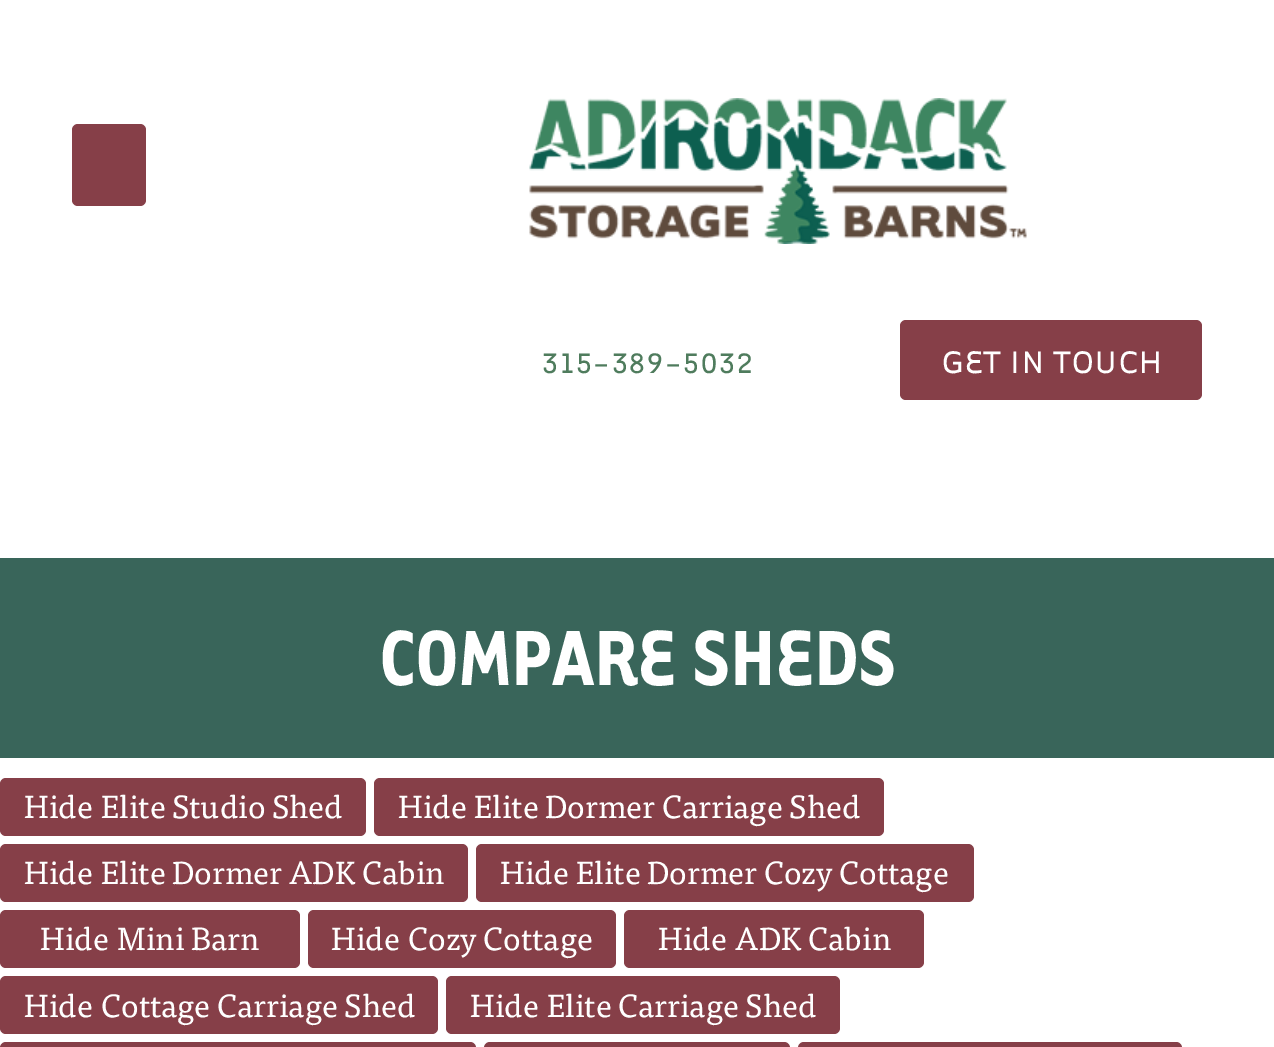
%!PS
<< /PageSize [1274 1047] >> setpagedevice
/fl/fill load def
/co { dup -16 bitshift 255 div exch dup -8 bitshift 255 and 255 div exch 255 and 255 div setrgbcolor } def
/fn { [ exch dup neg 0 0 3 -1 roll 0 0 ] selectfont } def
/tx { co fn moveto show } def
/bx { co rectfill } def
/rr { 5 dict begin { /r /h /w /y /x } { exch def } forall
  x r add y moveto x w add y 2 copy h add r arct x w add y h add x 1 index r arct
  x y h add x y r arct x y 2 copy exch w add exch r arct closepath end } def
/im { 5 dict begin { /h /w /y /x /name } { exch def } forall
  gsave x y translate w h scale
  w h 8 [w 0 0 h 0 0] name (r) file false 3 colorimage grestore end } def
0 1047 translate 1 -1 scale
4 setmiterlimit
0 0 1274 1047 16#FFFFFF bx
16#863F48 co
72 124 74 82 6 rr fl
(media/1.raw) 529 98 498 146 im
900 320 302 80 6 rr fl
0 558 1274 200 16#39655A bx
16#863F48 co
0 778 366 58 6 rr fl
374 778 510 58 6 rr fl
0 844 468 58 6 rr fl
476 844 498 58 6 rr fl
0 910 300 58 6 rr fl
308 910 308 58 6 rr fl
624 910 300 58 6 rr fl
0 976 438 58 6 rr fl
446 976 394 58 6 rr fl
0 1042 476 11 6 rr fl
484 1042 306 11 6 rr fl
798 1042 384 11 6 rr fl
(315-389-5032) 541 373 /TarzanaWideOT-Regular 32.5 16#4F7C5D tx
(GET IN TOUCH) 941 373 /TarzanaWideOT-Regular 36 16#FFFFFF tx
(COMPARE SHEDS) 379 685 /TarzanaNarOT-Bold 90 16#FFFFFF tx
(Hide) 24 818 /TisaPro-Regular 32 16#FFFFFF tx
(Elite Studio Shed) 101 818 /TisaPro-Regular 32 16#FFFFFF tx
(Hide) 398 818 /TisaPro-Regular 32 16#FFFFFF tx
(Elite Dormer Carriage Shed) 474 818 /TisaPro-Regular 32 16#FFFFFF tx
(Hide) 24 884 /TisaPro-Regular 32 16#FFFFFF tx
(Elite Dormer ADK Cabin) 101 884 /TisaPro-Regular 32 16#FFFFFF tx
(Hide) 500 884 /TisaPro-Regular 32 16#FFFFFF tx
(Elite Dormer Cozy Cottage) 576 884 /TisaPro-Regular 32 16#FFFFFF tx
(Hide) 40 950 /TisaPro-Regular 32 16#FFFFFF tx
(Mini Barn) 117 950 /TisaPro-Regular 32 16#FFFFFF tx
(Hide) 331 950 /TisaPro-Regular 32 16#FFFFFF tx
(Cozy Cottage) 408 950 /TisaPro-Regular 32 16#FFFFFF tx
(Hide) 658 950 /TisaPro-Regular 32 16#FFFFFF tx
(ADK Cabin) 735 950 /TisaPro-Regular 32 16#FFFFFF tx
(Hide) 24 1017 /TisaPro-Regular 32 16#FFFFFF tx
(Cottage Carriage Shed) 101 1017 /TisaPro-Regular 32 16#FFFFFF tx
(Hide) 470 1017 /TisaPro-Regular 32 16#FFFFFF tx
(Elite Carriage Shed) 547 1017 /TisaPro-Regular 32 16#FFFFFF tx
showpage
